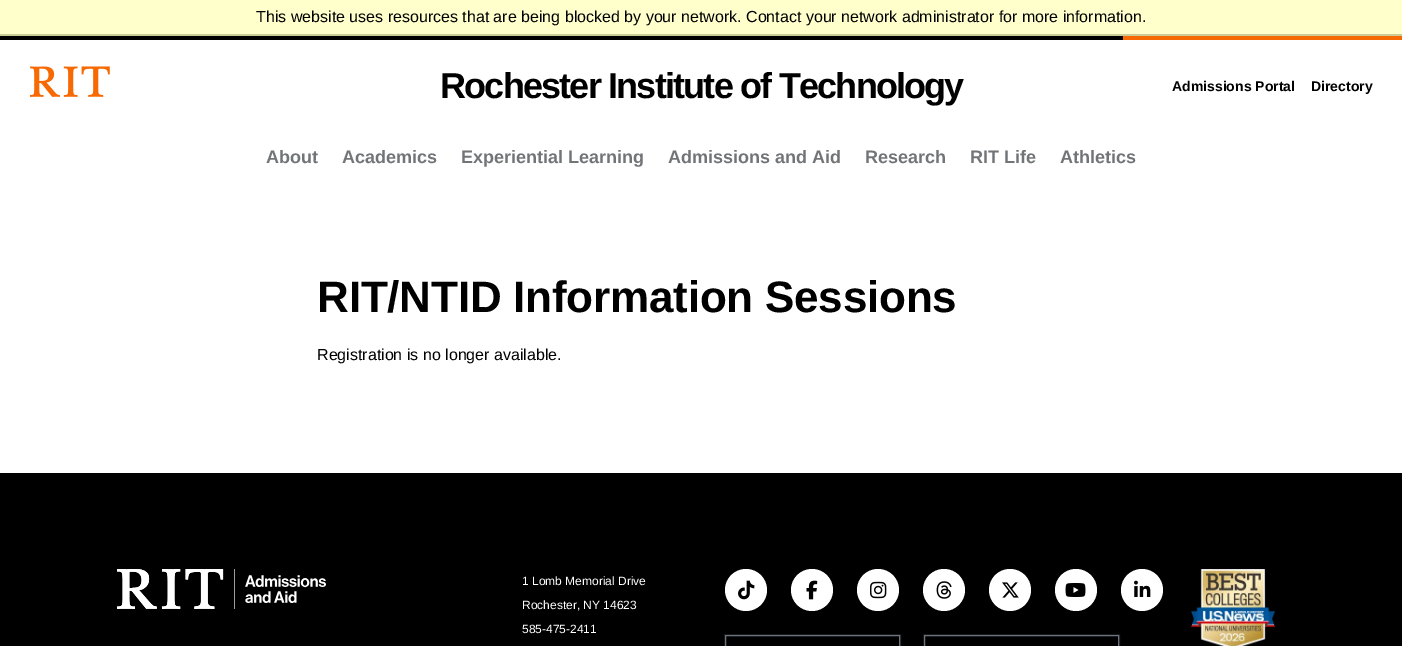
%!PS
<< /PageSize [1402 646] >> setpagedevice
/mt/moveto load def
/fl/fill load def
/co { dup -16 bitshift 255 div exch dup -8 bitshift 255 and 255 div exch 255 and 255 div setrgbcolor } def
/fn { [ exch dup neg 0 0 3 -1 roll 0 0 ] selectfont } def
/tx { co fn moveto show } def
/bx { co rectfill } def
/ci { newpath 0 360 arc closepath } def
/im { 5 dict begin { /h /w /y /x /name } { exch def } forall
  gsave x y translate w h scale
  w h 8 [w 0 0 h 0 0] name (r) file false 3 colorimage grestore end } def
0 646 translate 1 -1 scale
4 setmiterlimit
0 0 1402 646 16#FFFFFF bx
0 0 1402 34 16#FFFFCC bx
0 34 1402 2 16#CCCC99 bx
0 36 1123 4 16#000000 bx
1123 36 279 4 16#F76902 bx
(media/1.raw) 30 66 80 31 im
0 473 1402 173 16#000000 bx
(media/2.raw) 117 569 209 40 im
16#FFFFFF co
746 590 21 ci fl
(media/3.raw) 738 580 17 20 im
812 590 21 ci fl
(media/4.raw) 806 580 12 20 im
878 590 21 ci fl
(media/5.raw) 870 581 17 18 im
944 590 21 ci fl
(media/6.raw) 936 581 16 18 im
1010 590 21 ci fl
(media/7.raw) 1002 582 17 16 im
1076 590 21 ci fl
(media/8.raw) 1065 583 21 14 im
1142 590 21 ci fl
(media/9.raw) 1134 580 17 17 im
16#16181A co
724.5 634.5 176 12 rectstroke
16#6C757D co
725.5 635.5 174 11 rectstroke
16#16181A co
923.5 634.5 196 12 rectstroke
16#6C757D co
924.5 635.5 194 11 rectstroke
(media/10.raw) 1191 569 84 77 im
(This website uses resources that are being blocked by your network. Contact your network administrator for more information.) 256 22 /LiberationSans-Regular 16 16#000000 tx
/LiberationSans-Bold 36 fn
440 98 mt -1.8 0 (Rochester Institute of Technology) ashow
(Admissions Portal) 1172 91 /LiberationSans-Bold 14 16#000000 tx
(Directory) 1311 91 /LiberationSans-Bold 14 16#000000 tx
(About) 266 163 /LiberationSans-Bold 18 16#727578 tx
(Academics) 342 163 /LiberationSans-Bold 18 16#727578 tx
(Experiential Learning) 461 163 /LiberationSans-Bold 18 16#727578 tx
(Admissions and Aid) 668 163 /LiberationSans-Bold 18 16#727578 tx
(Research) 865 163 /LiberationSans-Bold 18 16#727578 tx
(RIT Life) 970 163 /LiberationSans-Bold 18 16#727578 tx
(Athletics) 1060 163 /LiberationSans-Bold 18 16#727578 tx
/LiberationSans-Bold 44 fn
16#000000 co
317 312 mt -.2 0 (RIT/NTID Information Sessions) ashow
(Registration is no longer available.) 317 360 /LiberationSans-Regular 16 16#000000 tx
(1 Lomb Memorial Drive) 522 585 /LiberationSans-Regular 12 16#FFFFFF tx
(Rochester, NY 14623) 522 609 /LiberationSans-Regular 12 16#FFFFFF tx
(585-475-2411) 522 633 /LiberationSans-Regular 12 16#FFFFFF tx
showpage
